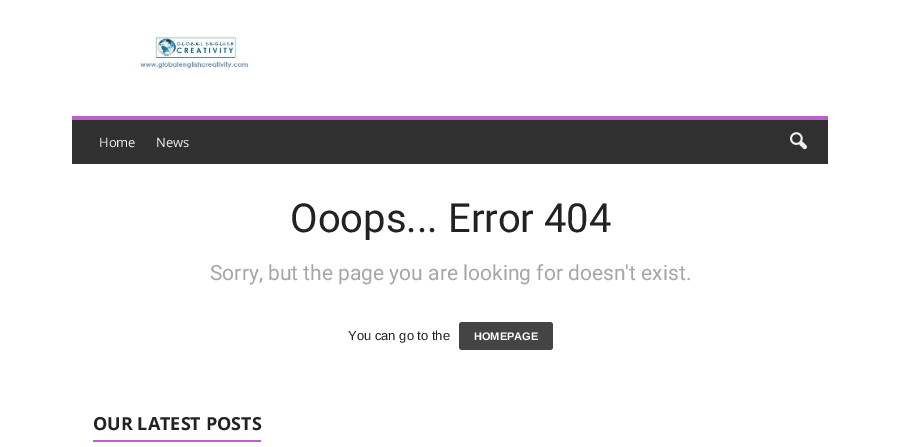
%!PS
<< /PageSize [900 447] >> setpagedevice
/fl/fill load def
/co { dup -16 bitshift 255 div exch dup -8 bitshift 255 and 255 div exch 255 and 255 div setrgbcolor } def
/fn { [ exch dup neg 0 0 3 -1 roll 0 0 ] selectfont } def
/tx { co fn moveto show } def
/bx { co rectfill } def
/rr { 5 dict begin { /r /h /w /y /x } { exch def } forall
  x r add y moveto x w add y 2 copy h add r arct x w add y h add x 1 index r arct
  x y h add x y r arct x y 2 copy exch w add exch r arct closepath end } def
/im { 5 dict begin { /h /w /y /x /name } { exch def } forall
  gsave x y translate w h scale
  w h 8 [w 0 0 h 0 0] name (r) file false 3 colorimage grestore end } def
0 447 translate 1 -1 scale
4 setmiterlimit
0 0 900 447 16#FFFFFF bx
(media/1.raw) 139 36 112 34 im
72 120 756 44 16#303030 bx
72 116 756 4 16#BD5ED1 bx
(media/2.raw) 790 132 17 18 im
16#444444 co
459 322 94 28 3 rr fl
93 440 168 2 16#BD5ED1 bx
(Home) 99 147 /OpenSans-Regular 13 16#EFEFEF tx
(News) 156 147 /OpenSans-Regular 13 16#EFEFEF tx
(Ooops... Error 404) 290 232 /Roboto-Regular 40 16#222222 tx
(Sorry, but the page you are looking for doesn't exist.) 210 280 /Roboto-Regular 21 16#A6A6A6 tx
(You can go to the) 348 340 /LiberationSans-Regular 13 16#222222 tx
(HOMEPAGE) 474 340 /LiberationSans-Bold 11 16#FFFFFF tx
(OUR LATEST POSTS) 93 430 /OpenSans-Bold 18 16#222222 tx
showpage
